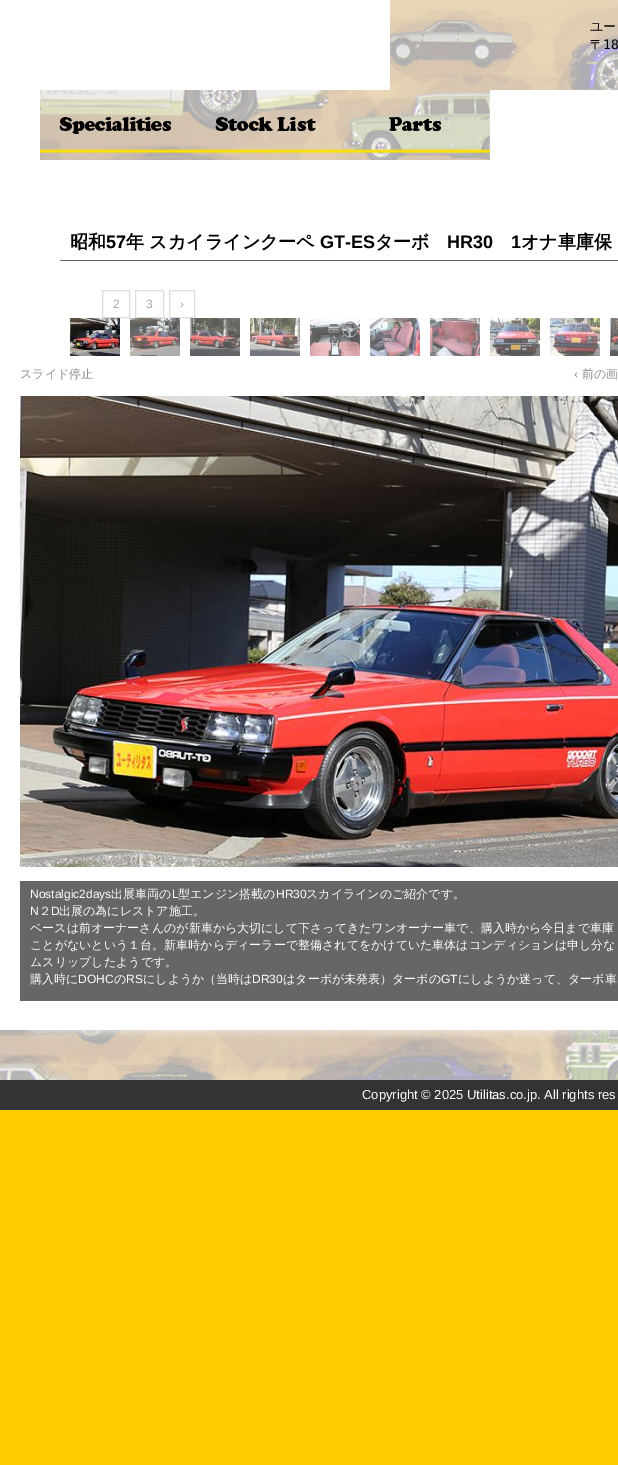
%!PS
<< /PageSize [618 1465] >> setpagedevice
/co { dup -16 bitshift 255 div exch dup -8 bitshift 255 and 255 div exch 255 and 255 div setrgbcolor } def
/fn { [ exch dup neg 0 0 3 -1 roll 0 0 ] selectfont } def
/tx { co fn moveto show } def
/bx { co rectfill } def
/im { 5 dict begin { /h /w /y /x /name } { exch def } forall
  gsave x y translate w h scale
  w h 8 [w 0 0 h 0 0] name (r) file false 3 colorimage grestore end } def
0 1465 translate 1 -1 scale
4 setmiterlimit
0 0 618 1465 16#FFCC00 bx
0 0 618 1030 16#FFFFFF bx
(media/1.raw) 390 0 228 90 im
(media/2.raw) 40 90 150 70 im
(media/3.raw) 190 90 150 70 im
(media/4.raw) 340 90 150 70 im
60 260 558 1 16#696969 bx
16#DDDDDD co
102.5 290.5 27 27 rectstroke
135.5 290.5 28 27 rectstroke
169.5 290.5 25 27 rectstroke
(media/5.raw) 70 318 50 38 im
(media/6.raw) 130 318 50 38 im
(media/7.raw) 190 318 50 38 im
(media/8.raw) 250 318 50 38 im
(media/9.raw) 310 318 50 38 im
(media/10.raw) 370 318 50 38 im
(media/11.raw) 430 318 50 38 im
(media/12.raw) 490 318 50 38 im
(media/13.raw) 550 318 50 38 im
(media/14.raw) 610 318 8 38 im
(media/15.raw) 20 396 598 471 im
20 881 598 120 16#666666 bx
(media/16.raw) 0 1030 618 50 im
0 1080 618 30 16#333333 bx
(ユー) 590 31 /WenQuanYiZenHei-Medium 13 16#000000 tx
(〒) 590 49 /WenQuanYiZenHei-Medium 13 16#000000 tx
(18) 603 49 /DejaVuSansMono-Regular 13 16#000000 tx
(昭和) 70 248 /WenQuanYiZenHei-Bold 18 16#000000 tx
(57) 106 248 /LiberationSans-Bold 18 16#000000 tx
(年 スカイラインクーペ) 126 248 /WenQuanYiZenHei-Bold 18 16#000000 tx
(GT-ES) 320 248 /LiberationSans-Bold 18 16#000000 tx
(ターボ) 375 248 /WenQuanYiZenHei-Bold 18 16#000000 tx
(HR30) 447 248 /LiberationSans-Bold 18 16#000000 tx
(1) 511 248 /LiberationSans-Bold 18 16#000000 tx
(オナ車庫保) 521 248 /WenQuanYiZenHei-Bold 18 16#000000 tx
(2) 113 308 /LiberationSans-Regular 12 16#A9A9A9 tx
(3) 146 308 /LiberationSans-Regular 12 16#A9A9A9 tx
(›) 180 308 /LiberationSans-Regular 12 16#A9A9A9 tx
(スライド停止) 20 378 /WenQuanYiZenHei-Medium 12 16#8E8E8E tx
(‹) 574 378 /LiberationSans-Regular 12 16#8E8E8E tx
(前の画) 582 378 /WenQuanYiZenHei-Medium 12 16#8E8E8E tx
(Nostalgic2days) 30 898 /LiberationSans-Regular 12 16#FFFFFF tx
(出展車両の) 111 898 /WenQuanYiZenHei-Medium 12 16#FFFFFF tx
(L) 172 898 /LiberationSans-Regular 12 16#FFFFFF tx
(型エンジン搭載の) 178 898 /WenQuanYiZenHei-Medium 12 16#FFFFFF tx
(HR30) 276 898 /LiberationSans-Regular 12 16#FFFFFF tx
(スカイラインのご紹介です。) 306 898 /WenQuanYiZenHei-Medium 12 16#FFFFFF tx
(N) 30 915 /LiberationSans-Regular 12 16#FFFFFF tx
(２) 39 915 /WenQuanYiZenHei-Medium 12 16#FFFFFF tx
(D) 51 915 /LiberationSans-Regular 12 16#FFFFFF tx
(出展の為にレストア施工。) 59 915 /WenQuanYiZenHei-Medium 12 16#FFFFFF tx
(ベースは前オーナーさんのが新車から大切にして下さってきたワンオーナー車で、購入時から今日まで車庫) 30 932 /WenQuanYiZenHei-Medium 12 16#FFFFFF tx
(ことがないという１台。新車時からディーラーで整備されてをかけていた車体はコンディションは申し分な) 30 949 /WenQuanYiZenHei-Medium 12 16#FFFFFF tx
(ムスリップしたようです。) 30 966 /WenQuanYiZenHei-Medium 12 16#FFFFFF tx
(購入時に) 30 983 /WenQuanYiZenHei-Medium 12 16#FFFFFF tx
(DOHC) 78 983 /LiberationSans-Regular 12 16#FFFFFF tx
(の) 114 983 /WenQuanYiZenHei-Medium 12 16#FFFFFF tx
(RS) 126 983 /LiberationSans-Regular 12 16#FFFFFF tx
(にしようか（当時は) 143 983 /WenQuanYiZenHei-Medium 12 16#FFFFFF tx
(DR30) 252 983 /LiberationSans-Regular 12 16#FFFFFF tx
(はターボが未発表）ターボの) 283 983 /WenQuanYiZenHei-Medium 12 16#FFFFFF tx
(GT) 441 983 /LiberationSans-Regular 12 16#FFFFFF tx
(にしようか迷って、ターボ車) 458 983 /WenQuanYiZenHei-Medium 12 16#FFFFFF tx
(Copyright © 2025 Utilitas.co.jp. All rights res) 362 1099 /LiberationSans-Regular 13 16#FFFFFF tx
showpage
